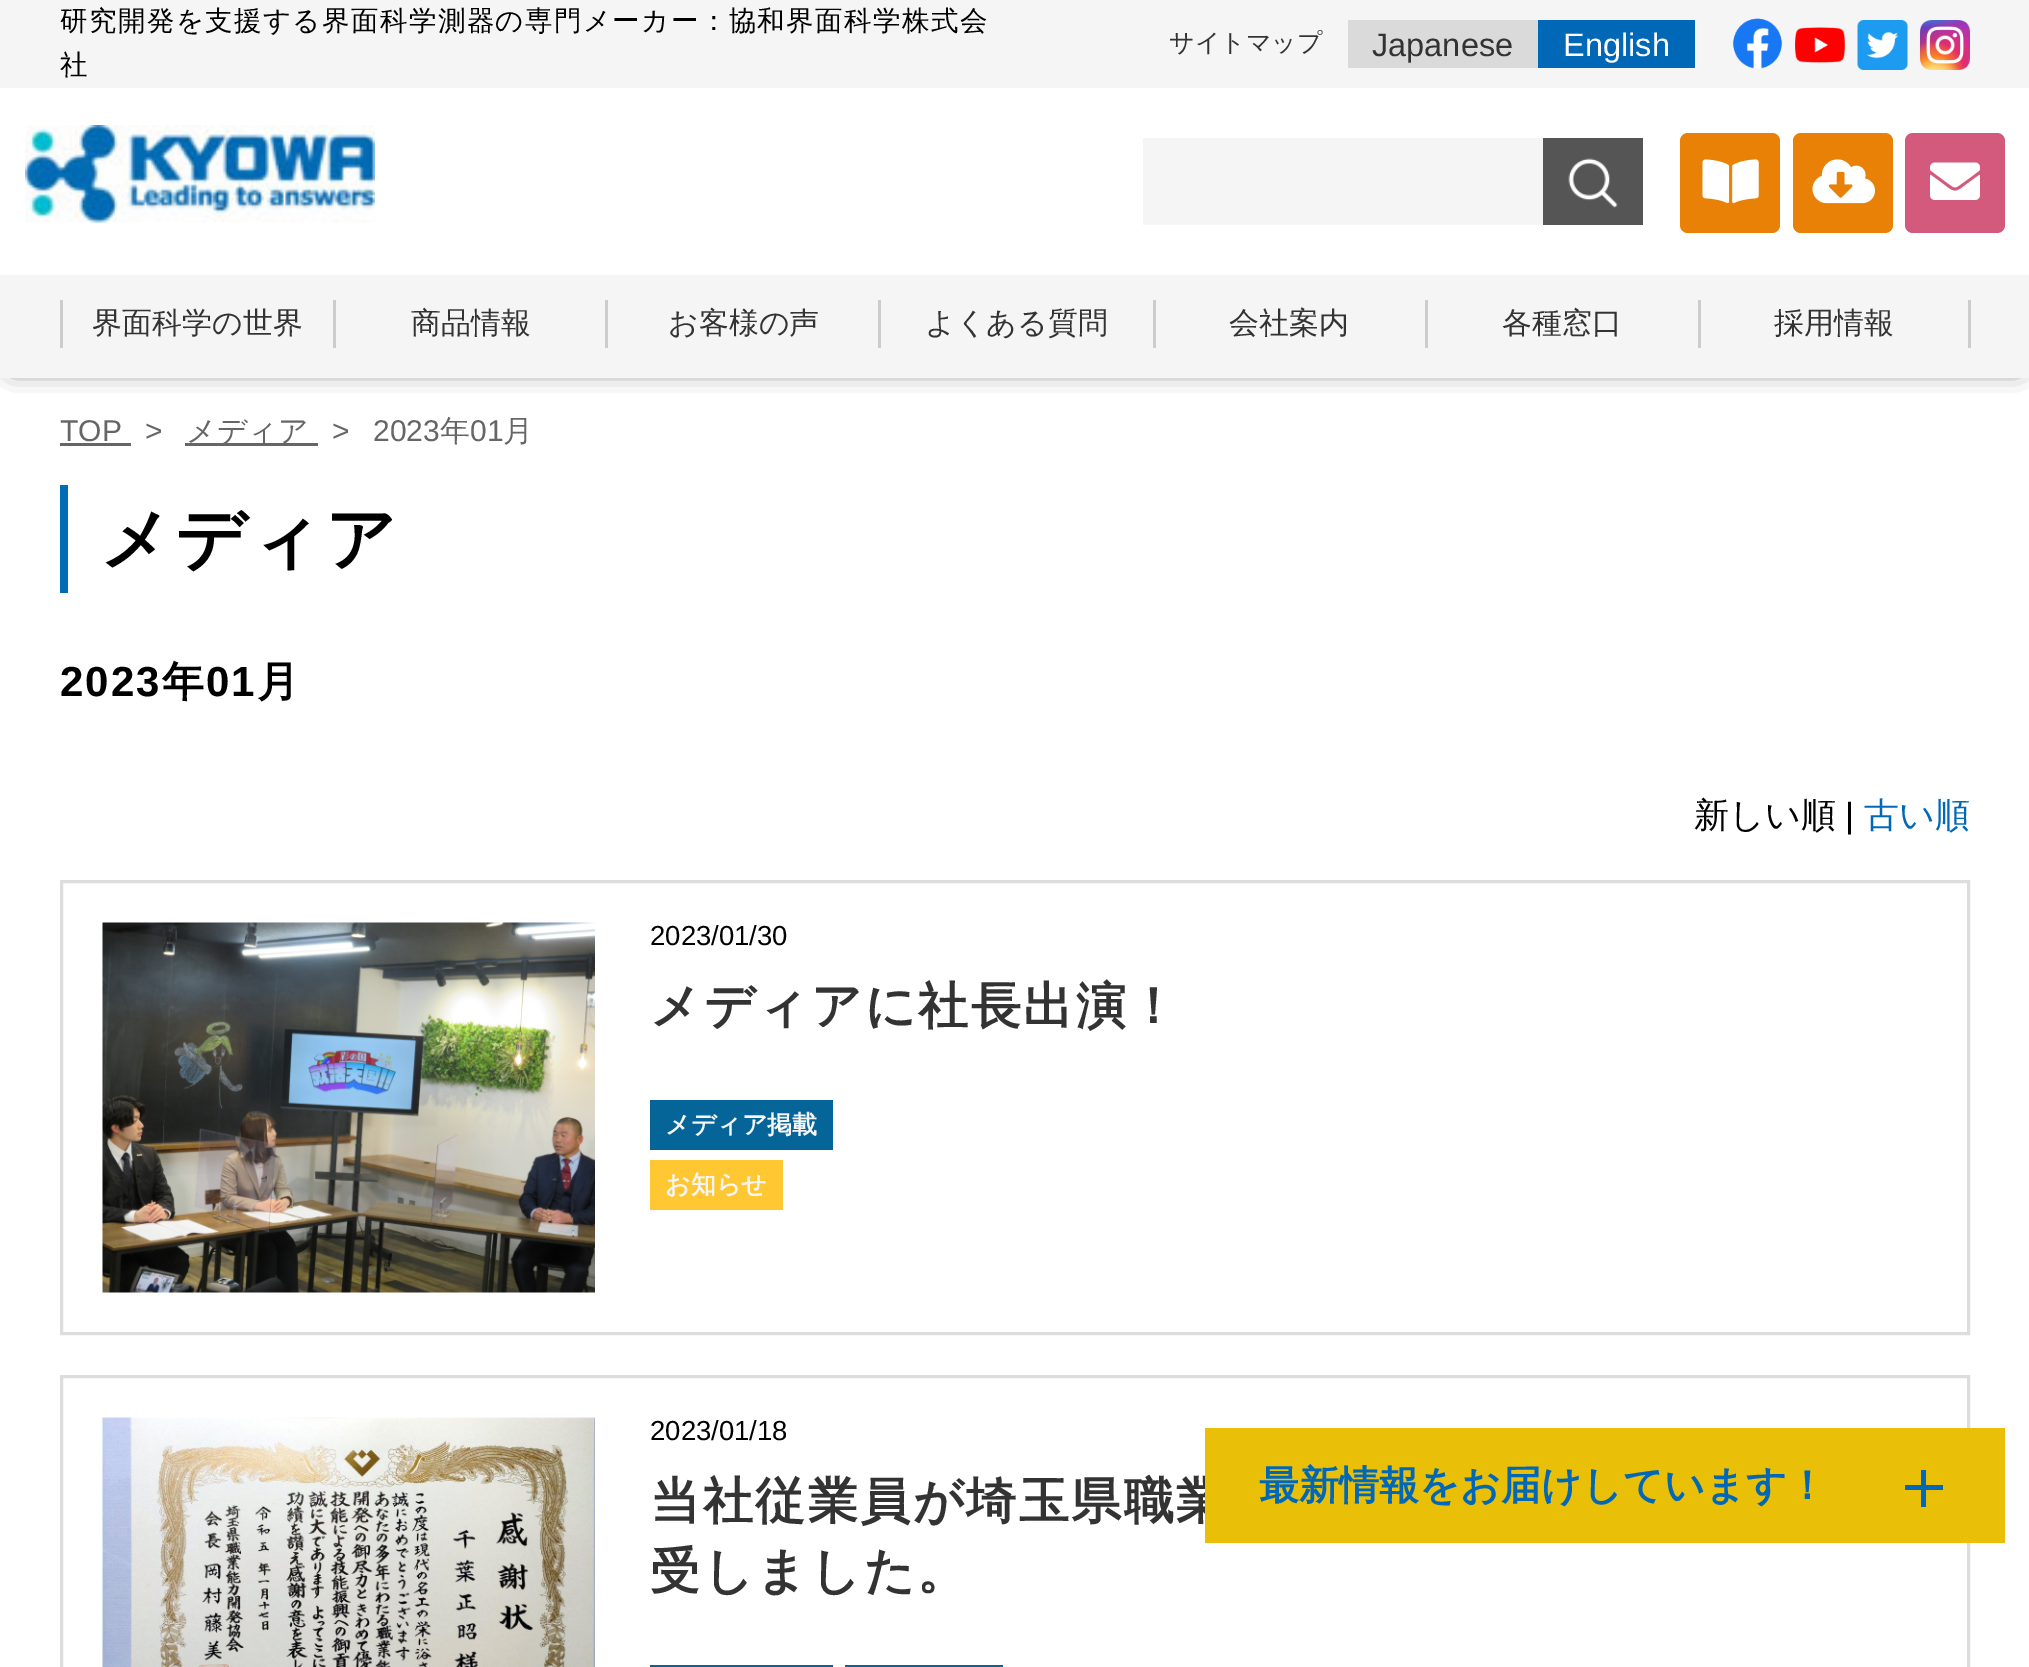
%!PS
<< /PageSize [2029 1667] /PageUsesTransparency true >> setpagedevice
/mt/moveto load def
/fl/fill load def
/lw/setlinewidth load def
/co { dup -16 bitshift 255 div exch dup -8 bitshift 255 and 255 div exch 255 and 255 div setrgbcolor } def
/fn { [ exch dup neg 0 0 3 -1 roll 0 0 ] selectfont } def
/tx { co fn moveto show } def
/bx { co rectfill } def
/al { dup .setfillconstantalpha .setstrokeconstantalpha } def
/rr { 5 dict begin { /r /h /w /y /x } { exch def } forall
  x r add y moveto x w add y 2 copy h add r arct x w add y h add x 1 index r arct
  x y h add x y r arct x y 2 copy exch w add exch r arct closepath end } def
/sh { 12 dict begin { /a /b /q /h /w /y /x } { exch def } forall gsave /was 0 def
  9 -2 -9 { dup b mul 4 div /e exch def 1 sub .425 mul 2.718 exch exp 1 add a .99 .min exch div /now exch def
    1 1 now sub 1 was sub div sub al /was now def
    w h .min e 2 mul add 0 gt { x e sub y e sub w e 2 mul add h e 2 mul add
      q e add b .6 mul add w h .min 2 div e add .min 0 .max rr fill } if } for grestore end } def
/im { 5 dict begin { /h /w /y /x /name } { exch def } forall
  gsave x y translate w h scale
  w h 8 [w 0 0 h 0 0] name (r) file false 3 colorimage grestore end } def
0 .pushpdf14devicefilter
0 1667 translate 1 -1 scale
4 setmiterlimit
0 0 2029 1667 16#FFFFFF bx
16#000000 co
13 13 2005 352 0 12.5 1 sh
0 88 2029 187 16#FFFFFF bx
0 0 2029 88 16#F5F5F5 bx
1348 20 190 48 16#DADADA bx
1538 20 157 48 16#0068B7 bx
(media/1.raw) 1732 18 51 51 im
(media/2.raw) 1795 27 50 36 im
(media/3.raw) 1857 20 51 50 im
(media/4.raw) 1920 20 50 50 im
(media/5.raw) 25 125 350 98 im
1143 138 400 87 16#F5F5F5 bx
1543 138 100 87 16#555555 bx
(media/6.raw) 1568 158 50 50 im
16#E98107 co
1680 133 100 100 8 rr fl
(media/7.raw) 1702 159 57 45 im
1793 133 100 100 8 rr fl
(media/8.raw) 1812 159 63 45 im
16#D35A7D co
1905 133 100 100 8 rr fl
(media/9.raw) 1930 162 50 38 im
0 275 2029 103 16#F5F5F5 bx
60 300 3 48 16#CCCCCC bx
333 300 3 48 16#CCCCCC bx
605 300 3 48 16#CCCCCC bx
878 300 3 48 16#CCCCCC bx
1153 300 3 48 16#CCCCCC bx
1425 300 3 48 16#CCCCCC bx
1968 300 3 48 16#CCCCCC bx
1698 300 3 48 16#CCCCCC bx
60 443 71 3 16#666666 bx
185 443 133 3 16#666666 bx
60 485 8 108 16#016DB6 bx
16#DDDDDD co
3 lw
61.5 881.5 1907 452 rectstroke
(media/10.raw) 102 922 493 371 im
650 1100 183 50 16#066598 bx
650 1160 133 50 16#FFC732 bx
16#DDDDDD co
61.5 1376.5 1907 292 rectstroke
(media/11.raw) 102 1417 493 250 im
650 1665 183 2 16#066598 bx
845 1665 158 2 16#066598 bx
/WenQuanYiZenHei-Medium 27.5 fn
16#000000 co
60 30 mt 1.4 0 (研究開発を支援する界面科学測器の専門メーカー：協和界面科学株式会) ashow
60 74 mt 1.4 0 (社) ashow
(サイトマップ) 1169 51 /WenQuanYiZenHei-Medium 25 16#333333 tx
(Japanese) 1372 56 /LiberationSans-Regular 32.5 16#333333 tx
(English) 1563 56 /LiberationSans-Regular 32.5 16#FFFFFF tx
(界面科学の世界) 92 333 /WenQuanYiZenHei-Medium 30 16#333333 tx
(商品情報) 411 333 /WenQuanYiZenHei-Medium 30 16#333333 tx
(お客様の声) 668 333 /WenQuanYiZenHei-Medium 30 16#333333 tx
(よくある質問) 925 333 /WenQuanYiZenHei-Medium 30 16#333333 tx
(会社案内) 1229 333 /WenQuanYiZenHei-Medium 30 16#333333 tx
(各種窓口) 1502 333 /WenQuanYiZenHei-Medium 30 16#333333 tx
(採用情報) 1774 333 /WenQuanYiZenHei-Medium 30 16#333333 tx
(TOP) 60 441 /LiberationSans-Regular 30 16#666666 tx
(>) 145 441 /LiberationSans-Regular 30 16#666666 tx
(メディア) 186 441 /WenQuanYiZenHei-Medium 30 16#666666 tx
(>) 332 441 /LiberationSans-Regular 30 16#666666 tx
(2023) 373 441 /LiberationSans-Regular 30 16#666666 tx
(年) 440 441 /WenQuanYiZenHei-Medium 30 16#666666 tx
(01) 470 441 /LiberationSans-Regular 30 16#666666 tx
(月) 503 441 /WenQuanYiZenHei-Medium 30 16#666666 tx
/WenQuanYiZenHei-Bold 70 fn
16#000000 co
100 563 mt 3.5 0 (メディア) ashow
/LiberationSans-Bold 42 fn
60 696 mt 2 0 (2023) ashow
/WenQuanYiZenHei-Bold 42 fn
162 696 mt 2 0 (年) ashow
/LiberationSans-Bold 42 fn
206 696 mt 2 0 (01) ashow
/WenQuanYiZenHei-Bold 42 fn
257 696 mt 2 0 (月) ashow
(新しい順) 1694 827 /WenQuanYiZenHei-Medium 35 16#000000 tx
(|) 1845 827 /LiberationSans-Regular 35 16#000000 tx
(古い順) 1864 827 /WenQuanYiZenHei-Medium 35 16#0068B7 tx
(2023/01/30) 650 945 /LiberationSans-Regular 27.5 16#000000 tx
/WenQuanYiZenHei-Bold 50 fn
16#333333 co
650 1023 mt 2.5 0 (メディアに社長出演！) ashow
(メディア掲載) 665 1133 /WenQuanYiZenHei-Bold 25 16#F5F5F5 tx
(お知らせ) 665 1193 /WenQuanYiZenHei-Bold 25 16#F5F5F5 tx
(2023/01/18) 650 1440 /LiberationSans-Regular 27.5 16#000000 tx
/WenQuanYiZenHei-Bold 50 fn
16#333333 co
650 1518 mt 2.5 0 (当社従業員が埼玉県職業) ashow
650 1588 mt 2.5 0 (受しました。) ashow
1205 1428 800 115 16#E9C007 bx
(最新情報をお届けしています！) 1259 1499 /WenQuanYiZenHei-Bold 40 16#0068B7 tx
1921 1470 5 37 16#0068B7 bx
1905 1485 38 5 16#0068B7 bx
.poppdf14devicefilter showpage
